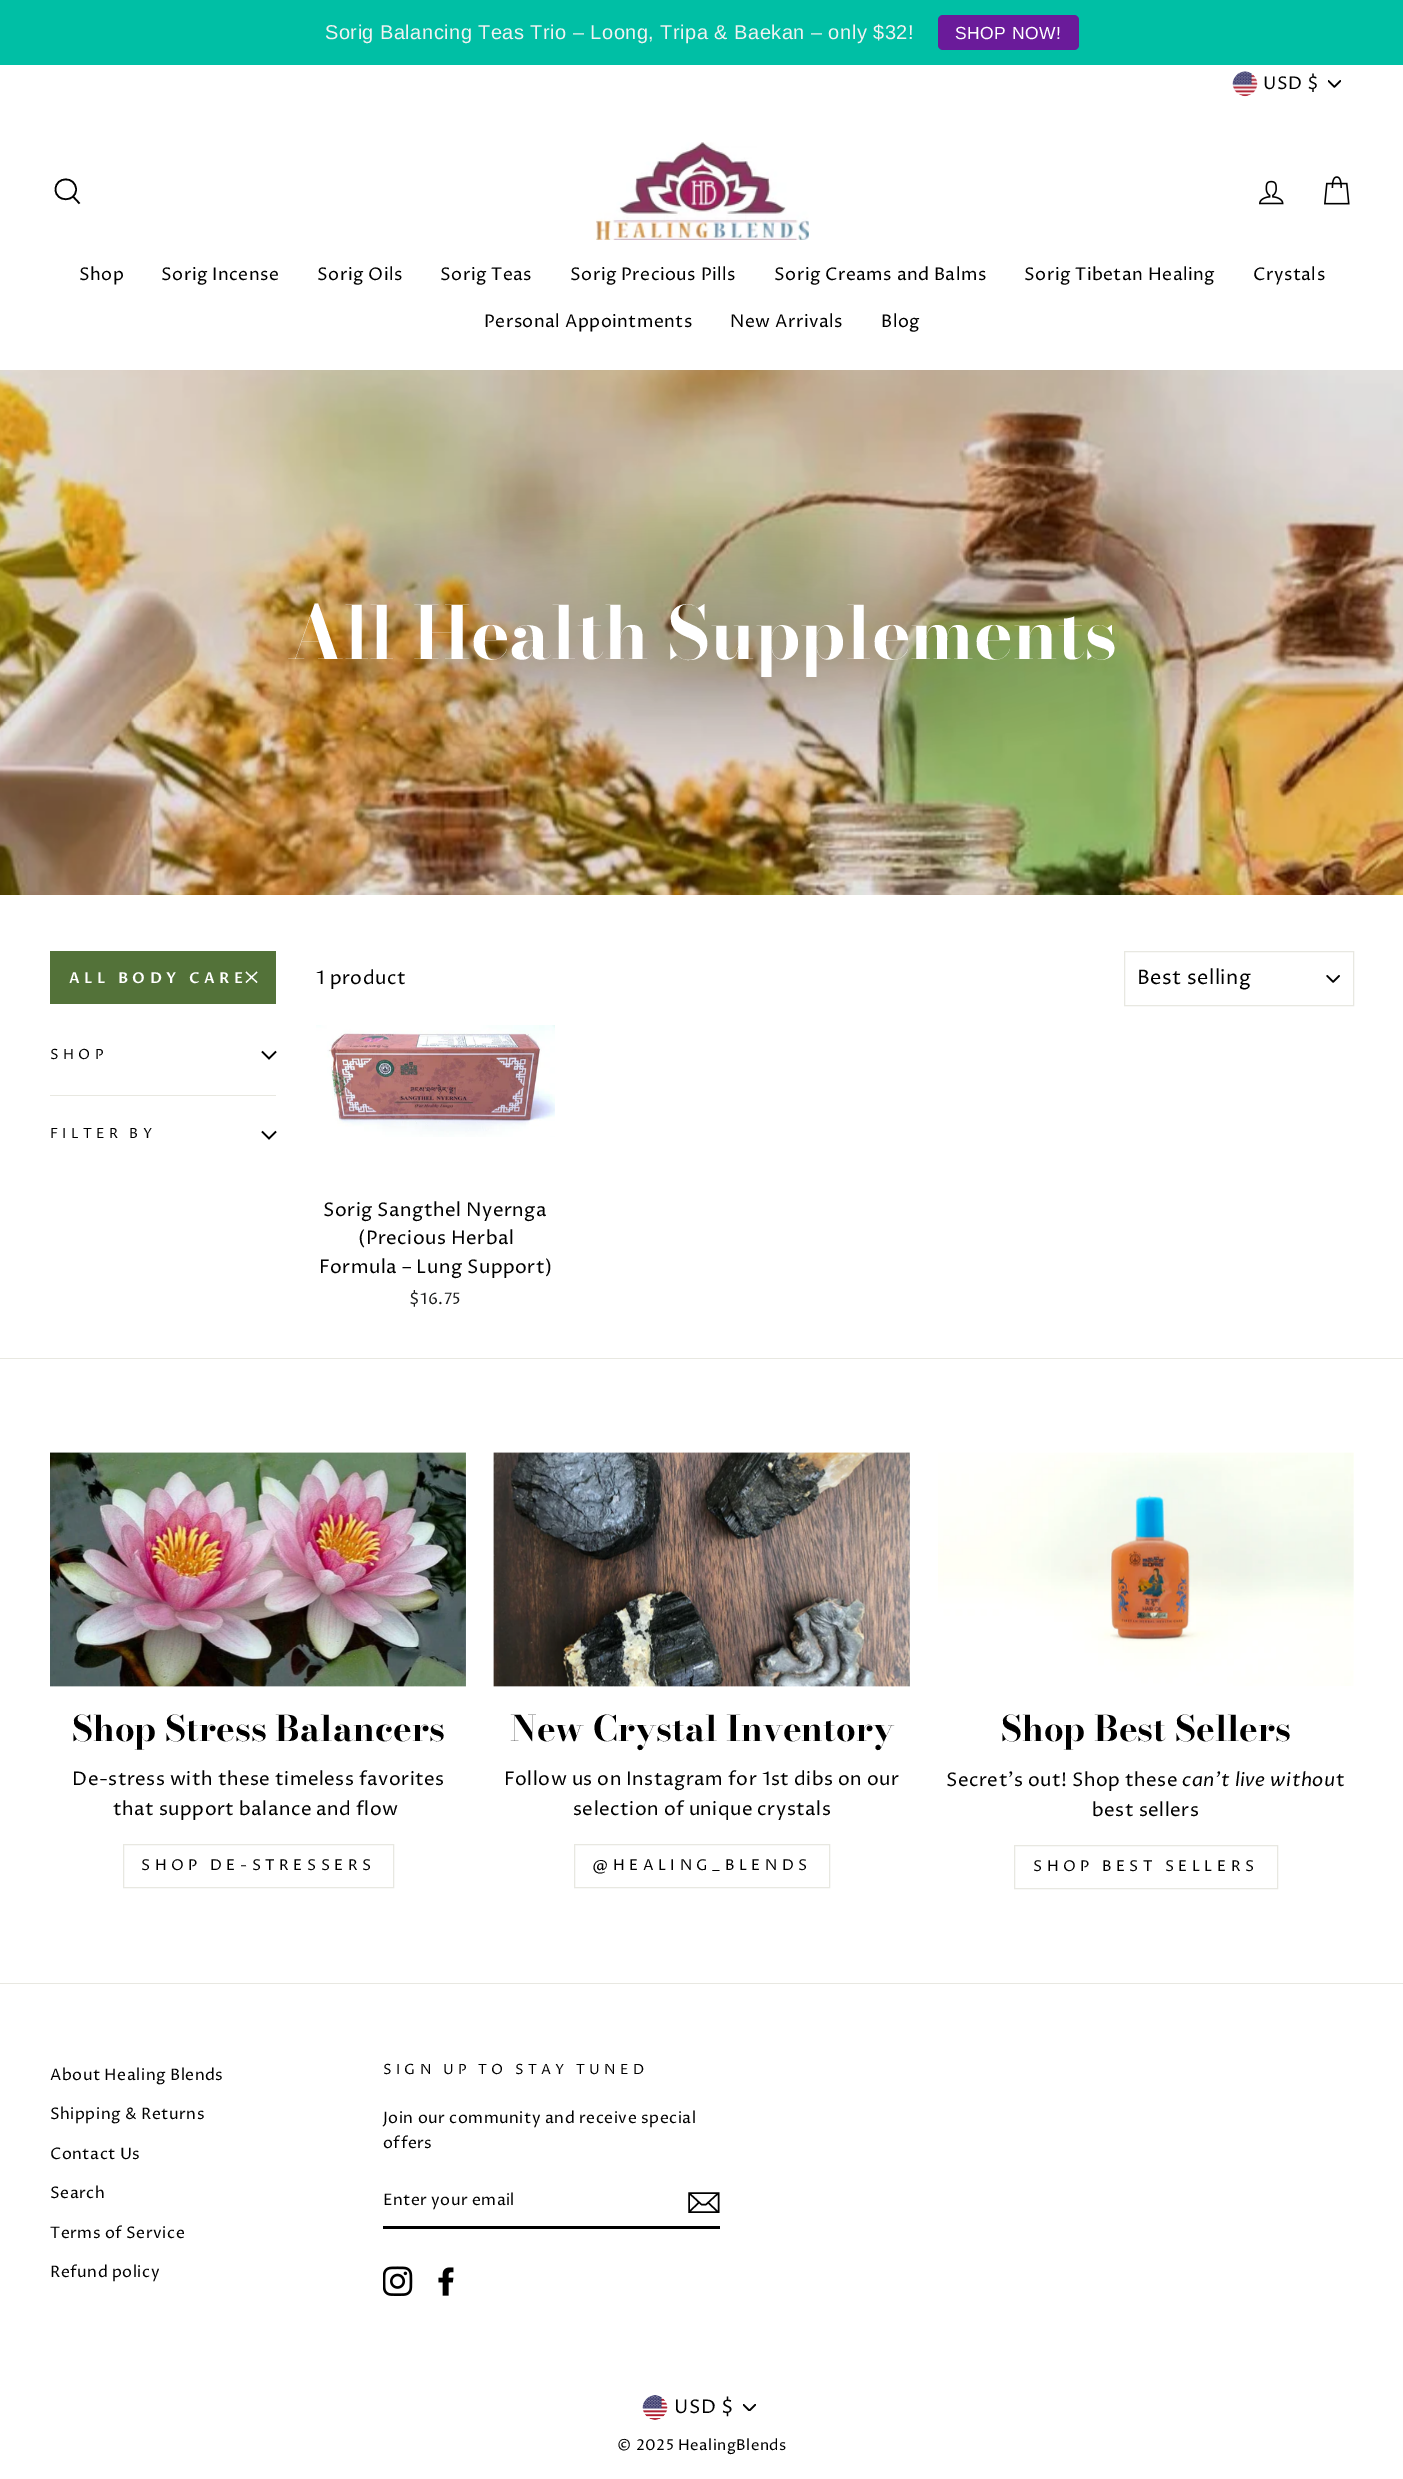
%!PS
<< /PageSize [1403 2479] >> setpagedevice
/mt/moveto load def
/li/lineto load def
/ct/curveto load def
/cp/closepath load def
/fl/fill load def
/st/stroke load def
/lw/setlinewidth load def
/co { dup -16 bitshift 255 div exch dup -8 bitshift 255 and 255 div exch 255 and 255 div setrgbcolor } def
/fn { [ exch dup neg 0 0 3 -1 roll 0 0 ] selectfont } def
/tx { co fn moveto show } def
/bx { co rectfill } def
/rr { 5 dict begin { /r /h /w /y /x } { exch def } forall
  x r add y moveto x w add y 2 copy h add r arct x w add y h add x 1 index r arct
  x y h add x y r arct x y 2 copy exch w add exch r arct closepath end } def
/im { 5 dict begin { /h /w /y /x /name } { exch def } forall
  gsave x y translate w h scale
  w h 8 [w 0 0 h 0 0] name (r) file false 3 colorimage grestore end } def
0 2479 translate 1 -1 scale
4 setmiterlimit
0 0 1403 2479 16#FFFFFF bx
0 0 1403 65 16#00BFA5 bx
16#6A1B9A co
938 15 141 35 5 rr fl
(media/1.raw) 1328 80 13 8 im
(media/2.raw) 1232 71 26 26 im
16#000000 co
1.6 lw
76 189.5 mt 76 202.5 55.5 202.5 55.5 189.5 ct 55.5 176 76 176 76 189.5 ct cp 79.5 203.5 mt 73 196.5 li st
(media/3.raw) 596 142 213 98 im
(media/4.raw) 1259 180 25 25 im
(media/5.raw) 1324 176 26 29 im
(media/6.raw) 0 370 1403 525 im
50 951 226 53 16#537239 bx
16#FFFFFF co
1.2 lw
246 972 mt 257 982.5 li 257 972 mt 246 982.5 li st
16#000000 co
1.6 lw
262 1051.5 mt 269 1058.5 li 276 1051.5 li st
50 1095 226 1 16#E8E8E1 bx
16#000000 co
262 1131.5 mt 269 1138.5 li 276 1131.5 li st
(media/7.raw) 1326 975 14 8 im
16#E8E8E1 co
1 lw
1124.5 951.5 229 54 rectstroke
(media/8.raw) 316 1025 239 112 im
0 1358 1403 1 16#E8E8E1 bx
(media/9.raw) 50 1452 416 235 im
123.5 1844.5 270 43 rectstroke
(media/10.raw) 493 1452 417 235 im
574.5 1844.5 255 43 rectstroke
(media/11.raw) 938 1452 416 234 im
1014.5 1845.5 263 43 rectstroke
0 1983 1403 1 16#E8E8E1 bx
383 2226 337 3 16#000000 bx
1.4 lw
718.5 2212 mt 689 2212 li 689 2193 li 718.5 2193 li cp 689 2193 mt 701.5 2204.5 li 706 2204.5 li 718.5 2193 li 699 2202.5 mt 689.5 2211.5 li 718 2212 mt 708 2202.5 li st
(media/12.raw) 383 2266 30 30 im
(media/13.raw) 438 2267 16 29 im
(media/14.raw) 743 2404 13 7 im
(media/15.raw) 642 2395 26 25 im
/LiberationSans-Regular 20 fn
16#F2F2F2 co
325 39 mt .47 0 (Sorig Balancing Teas Trio – Loong, Tripa & Baekan – only $32!) ashow
/LiberationSans-Regular 17.5 fn
16#FFFFFF co
955 39 mt .47 0 (SHOP NOW!) ashow
/ProzaLibre-Regular 17.5 fn
16#000000 co
1263 89 mt .5 0 (USD $) ashow
79 280 mt .47 0 (Shop) ashow
161 280 mt .47 0 (Sorig Incense) ashow
317 280 mt .47 0 (Sorig Oils) ashow
440 280 mt .47 0 (Sorig Teas) ashow
570 280 mt .47 0 (Sorig Precious Pills) ashow
774 280 mt .47 0 (Sorig Creams and Balms) ashow
1024 280 mt .47 0 (Sorig Tibetan Healing) ashow
1253 280 mt .47 0 (Crystals) ashow
484 327 mt .47 0 (Personal Appointments) ashow
730 327 mt .47 0 (New Arrivals) ashow
881 327 mt .47 0 (Blog) ashow
(All Health Supplements) 287 659 /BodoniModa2-Bold 72.5 16#FFFFFF tx
/ProzaLibre-SemiBold 15 fn
69 983 mt 4.5 0 (ALL BODY CARE) ashow
/ProzaLibre-Regular 14.1 fn
16#000000 co
50 1059 mt 4.25 0 (SHOP) ashow
50 1138 mt 4.25 0 (FILTER BY) ashow
/ProzaLibre-Regular 18.75 fn
316 984 mt .47 0 (1 product) ashow
/ProzaLibre-Regular 20 fn
1137 984 mt .5 0 (Best selling) ashow
/ProzaLibre-Regular 18.75 fn
323 1216 mt .47 0 (Sorig Sangthel Nyernga) ashow
358 1244 mt .47 0 (\(Precious Herbal) ashow
319 1273 mt .47 0 (Formula – Lung Support\)) ashow
/ProzaLibre-Regular 15.9 fn
16#1C1D1D co
409 1304 mt .47 0 ($16.75) ashow
(Shop Stress Balancers) 72 1741 /BodoniModa-Bold 35 16#000000 tx
/ProzaLibre-Regular 18.75 fn
72 1785 mt .47 0 (De-stress with these timeless favorites) ashow
113 1815 mt .47 0 (that support balance and flow) ashow
/ProzaLibre-Regular 15 fn
141 1870 mt 4.5 0 (SHOP DE-STRESSERS) ashow
(New Crystal Inventory) 510 1741 /BodoniModa-Bold 35 16#000000 tx
/ProzaLibre-Regular 18.75 fn
504 1785 mt .47 0 (Follow us on Instagram for 1st dibs on our) ashow
573 1815 mt .47 0 (selection of unique crystals) ashow
/ProzaLibre-Regular 15 fn
592 1870 mt 4.5 0 (@HEALING_BLENDS) ashow
(Shop Best Sellers) 1001 1741 /BodoniModa-Bold 35 16#000000 tx
/ProzaLibre-Regular 18.75 fn
946 1786 mt .47 0 (Secret's out! Shop these) ashow
/ProzaLibre-Italic 18.75 fn
1182 1786 mt .47 0 (can't live withou) ashow
/ProzaLibre-Regular 18.75 fn
1336 1786 mt .47 0 (t) ashow
1092 1816 mt .47 0 (best sellers) ashow
/ProzaLibre-Regular 15 fn
1033 1871 mt 4.5 0 (SHOP BEST SELLERS) ashow
/ProzaLibre-Regular 15.9 fn
50 2080 mt .47 0 (About Healing Blends) ashow
50 2119 mt .47 0 (Shipping & Returns) ashow
50 2159 mt .47 0 (Contact Us) ashow
50 2198 mt .47 0 (Search) ashow
50 2238 mt .47 0 (Terms of Service) ashow
50 2277 mt .47 0 (Refund policy) ashow
/ProzaLibre-Regular 14.1 fn
383 2074 mt 4.25 0 (SIGN UP TO STAY TUNED) ashow
/ProzaLibre-Regular 15.9 fn
383 2123 mt .47 0 (Join our community and receive special) ashow
383 2148 mt .47 0 (offers) ashow
383 2205 mt .4 0 (Enter your email) ashow
/ProzaLibre-Regular 18.75 fn
674 2413 mt .47 0 (USD $) ashow
/ProzaLibre-Regular 15 fn
617 2450 mt .47 0 (© 2025 HealingBlends) ashow
showpage
